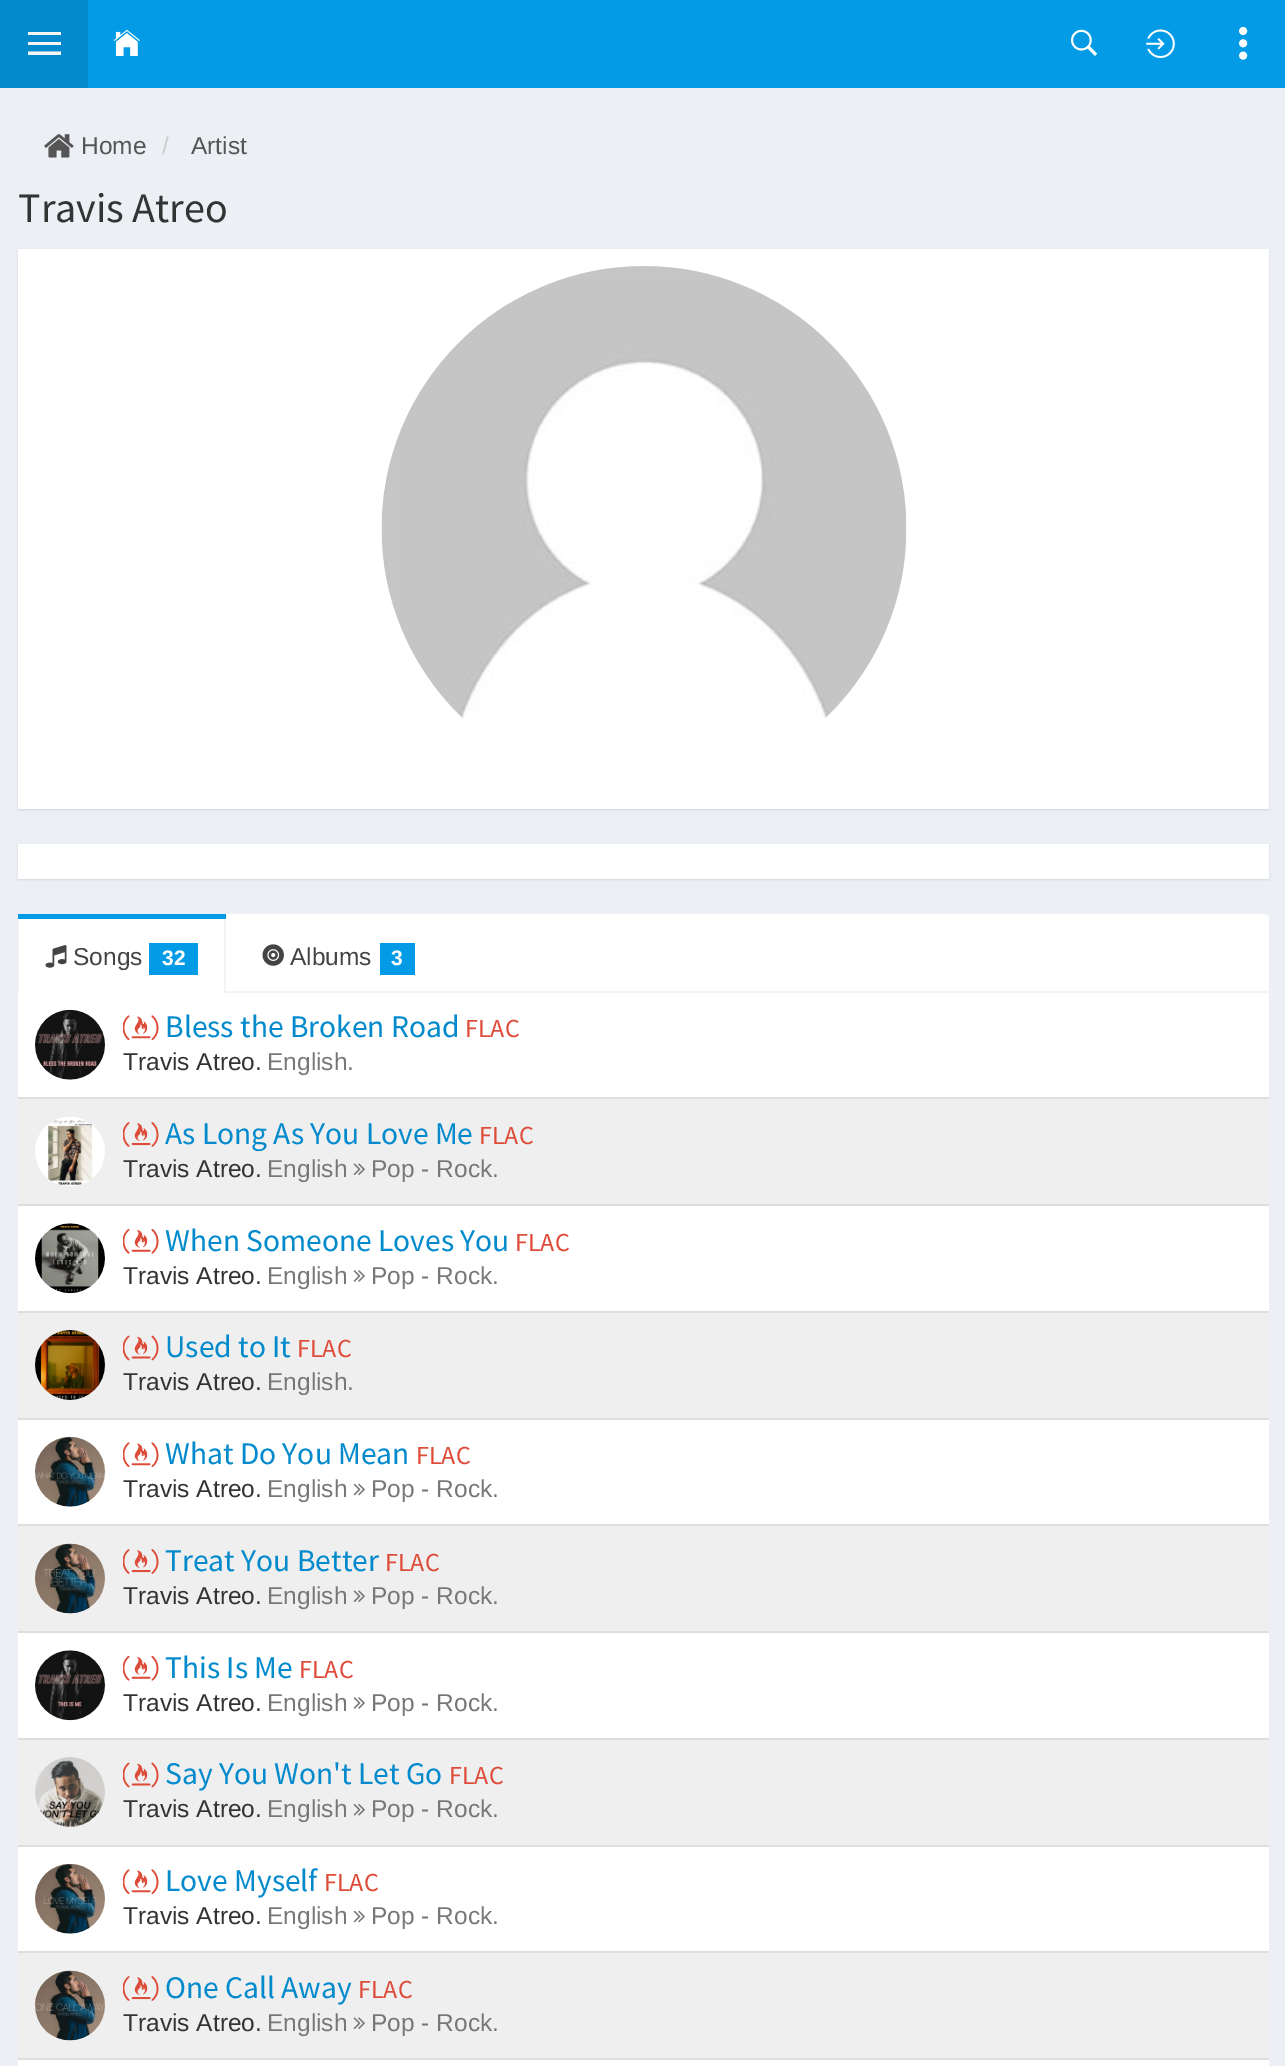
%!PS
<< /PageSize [1285 2066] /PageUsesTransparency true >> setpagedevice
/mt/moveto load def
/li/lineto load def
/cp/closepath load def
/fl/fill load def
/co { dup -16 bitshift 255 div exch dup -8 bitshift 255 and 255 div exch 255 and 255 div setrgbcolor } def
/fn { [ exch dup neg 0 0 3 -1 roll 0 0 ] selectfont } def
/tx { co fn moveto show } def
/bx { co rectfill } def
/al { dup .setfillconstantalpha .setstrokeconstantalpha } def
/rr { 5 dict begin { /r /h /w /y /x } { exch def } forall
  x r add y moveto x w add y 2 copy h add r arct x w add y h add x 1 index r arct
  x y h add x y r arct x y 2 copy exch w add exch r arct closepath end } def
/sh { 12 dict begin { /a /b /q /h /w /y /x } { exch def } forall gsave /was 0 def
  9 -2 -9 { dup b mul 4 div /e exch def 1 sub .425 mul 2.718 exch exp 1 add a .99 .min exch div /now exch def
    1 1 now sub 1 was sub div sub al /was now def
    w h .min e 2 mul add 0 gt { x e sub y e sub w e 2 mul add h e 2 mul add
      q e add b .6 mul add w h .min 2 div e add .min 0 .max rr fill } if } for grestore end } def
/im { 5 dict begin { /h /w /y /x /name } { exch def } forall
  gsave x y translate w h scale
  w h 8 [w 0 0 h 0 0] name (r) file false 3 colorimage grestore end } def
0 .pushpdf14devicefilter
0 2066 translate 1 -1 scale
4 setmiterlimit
0 0 1285 2066 16#ECF0F5 bx
88 0 1197 88 16#039BE5 bx
0 0 88 88 16#038ACC bx
16#F6F6F6 co
28 45 mt 28 42 li 61 42 li 61 45 li cp 28 35 mt 28 32 li 61 32 li 61 35 li cp 28 55 mt 28 51.5 li 61 51.5 li 61 55 li cp fl
(media/1.raw) 113 29 27 27 im
(media/2.raw) 1071 29 27 27 im
(media/3.raw) 1146 29 29 29 im
(media/4.raw) 1239 26 9 34 im
(media/5.raw) 44 134 30 24 im
16#000000 co
18 250 1251 560 0 1 .1 sh
18 249 1251 560 16#FFFFFF bx
(media/6.raw) 381 266 526 453 im
16#000000 co
18 845 1251 35 0 1 .1 sh
18 844 1251 35 16#FFFFFF bx
18 914 1251 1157 5 rr fl
226 991 1043 2 16#F4F4F4 bx
18 914 208 5 16#039BE5 bx
16#F4F4F4 co
226 919 mt 226 994 li 224 992 li 224 920 li cp fl
18 994 mt 18 919 li 19 920 li 19 992 li cp fl
(media/7.raw) 45 945 22 23 im
149 943 49 32 16#039BE5 bx
(media/8.raw) 262 944 22 22 im
380 943 35 32 16#039BE5 bx
(media/9.raw) 35 1009 70 71 im
(media/10.raw) 123 1015 36 26 im
18 1099 1251 105 16#EFEFEF bx
18 1097 1251 2 16#DEDEDE bx
(media/11.raw) 35 1117 70 69 im
(media/12.raw) 123 1122 36 25 im
(media/13.raw) 353 1163 12 12 im
18 1204 1251 2 16#DEDEDE bx
(media/14.raw) 35 1223 70 71 im
(media/15.raw) 123 1228 36 26 im
(media/16.raw) 353 1270 12 12 im
18 1313 1251 105 16#EFEFEF bx
18 1311 1251 2 16#DEDEDE bx
(media/17.raw) 35 1330 70 70 im
(media/18.raw) 123 1335 36 26 im
18 1418 1251 2 16#DEDEDE bx
(media/19.raw) 35 1436 70 71 im
(media/10.raw) 123 1442 36 26 im
(media/20.raw) 353 1483 12 13 im
18 1526 1251 105 16#EFEFEF bx
18 1524 1251 2 16#DEDEDE bx
(media/21.raw) 35 1543 70 71 im
(media/12.raw) 123 1549 36 25 im
(media/13.raw) 353 1590 12 12 im
18 1631 1251 2 16#DEDEDE bx
(media/22.raw) 35 1650 70 71 im
(media/15.raw) 123 1655 36 26 im
(media/16.raw) 353 1697 12 12 im
18 1740 1251 105 16#EFEFEF bx
18 1738 1251 2 16#DEDEDE bx
(media/23.raw) 35 1757 70 70 im
(media/18.raw) 123 1762 36 26 im
(media/24.raw) 353 1804 12 12 im
18 1845 1251 2 16#DEDEDE bx
(media/25.raw) 35 1863 70 71 im
(media/10.raw) 123 1869 36 26 im
(media/20.raw) 353 1910 12 13 im
18 1953 1251 105 16#EFEFEF bx
18 1951 1251 2 16#DEDEDE bx
(media/26.raw) 35 1970 70 71 im
(media/12.raw) 123 1976 36 25 im
(media/13.raw) 353 2017 12 12 im
18 2058 1251 2 16#DEDEDE bx
(Home) 81 154 /LiberationSans-Regular 24.5 16#555555 tx
(/) 162 154 /LiberationSans-Regular 24.5 16#CCCCCC tx
(Artist) 191 154 /LiberationSans-Regular 24.5 16#555555 tx
(Travis Atreo) 18 222 /SourceSansPro-Regular 42 16#333333 tx
(Songs) 73 965 /LiberationSans-Regular 24.5 16#444444 tx
(32) 162 965 /LiberationSans-Bold 21 16#FFFFFF tx
(Albums) 290 965 /LiberationSans-Regular 24.5 16#444444 tx
(3) 391 965 /LiberationSans-Bold 21 16#FFFFFF tx
(Bless the Broken Road) 165 1037 /SourceSansPro-Regular 31.5 16#038ACC tx
(FLAC) 465 1037 /SourceSansPro-Regular 26 16#DD4B39 tx
(Travis Atreo.) 123 1070 /LiberationSans-Regular 24.5 16#333333 tx
(English.) 267 1070 /LiberationSans-Regular 24.5 16#777777 tx
(As Long As You Love Me) 165 1144 /SourceSansPro-Regular 31.5 16#038ACC tx
(FLAC) 479 1144 /SourceSansPro-Regular 26 16#DD4B39 tx
(Travis Atreo.) 123 1177 /LiberationSans-Regular 24.5 16#333333 tx
(English) 267 1177 /LiberationSans-Regular 24.5 16#777777 tx
(Pop - Rock.) 371 1177 /LiberationSans-Regular 24.5 16#777777 tx
(When Someone Loves You) 165 1251 /SourceSansPro-Regular 31.5 16#038ACC tx
(FLAC) 515 1251 /SourceSansPro-Regular 26 16#DD4B39 tx
(Travis Atreo.) 123 1284 /LiberationSans-Regular 24.5 16#333333 tx
(English) 267 1284 /LiberationSans-Regular 24.5 16#777777 tx
(Pop - Rock.) 371 1284 /LiberationSans-Regular 24.5 16#777777 tx
(Used to It) 165 1357 /SourceSansPro-Regular 31.5 16#038ACC tx
(FLAC) 297 1357 /SourceSansPro-Regular 26 16#DD4B39 tx
(Travis Atreo.) 123 1390 /LiberationSans-Regular 24.5 16#333333 tx
(English.) 267 1390 /LiberationSans-Regular 24.5 16#777777 tx
(What Do You Mean) 165 1464 /SourceSansPro-Regular 31.5 16#038ACC tx
(FLAC) 416 1464 /SourceSansPro-Regular 26 16#DD4B39 tx
(Travis Atreo.) 123 1497 /LiberationSans-Regular 24.5 16#333333 tx
(English) 267 1497 /LiberationSans-Regular 24.5 16#777777 tx
(Pop - Rock.) 371 1497 /LiberationSans-Regular 24.5 16#777777 tx
(Treat You Better) 165 1571 /SourceSansPro-Regular 31.5 16#038ACC tx
(FLAC) 385 1571 /SourceSansPro-Regular 26 16#DD4B39 tx
(Travis Atreo.) 123 1604 /LiberationSans-Regular 24.5 16#333333 tx
(English) 267 1604 /LiberationSans-Regular 24.5 16#777777 tx
(Pop - Rock.) 371 1604 /LiberationSans-Regular 24.5 16#777777 tx
(This Is Me) 165 1678 /SourceSansPro-Regular 31.5 16#038ACC tx
(FLAC) 299 1678 /SourceSansPro-Regular 26 16#DD4B39 tx
(Travis Atreo.) 123 1711 /LiberationSans-Regular 24.5 16#333333 tx
(English) 267 1711 /LiberationSans-Regular 24.5 16#777777 tx
(Pop - Rock.) 371 1711 /LiberationSans-Regular 24.5 16#777777 tx
(Say You Won't Let Go) 165 1784 /SourceSansPro-Regular 31.5 16#038ACC tx
(FLAC) 449 1784 /SourceSansPro-Regular 26 16#DD4B39 tx
(Travis Atreo.) 123 1817 /LiberationSans-Regular 24.5 16#333333 tx
(English) 267 1817 /LiberationSans-Regular 24.5 16#777777 tx
(Pop - Rock.) 371 1817 /LiberationSans-Regular 24.5 16#777777 tx
(Love Myself) 165 1891 /SourceSansPro-Regular 31.5 16#038ACC tx
(FLAC) 324 1891 /SourceSansPro-Regular 26 16#DD4B39 tx
(Travis Atreo.) 123 1924 /LiberationSans-Regular 24.5 16#333333 tx
(English) 267 1924 /LiberationSans-Regular 24.5 16#777777 tx
(Pop - Rock.) 371 1924 /LiberationSans-Regular 24.5 16#777777 tx
(One Call Away) 165 1998 /SourceSansPro-Regular 31.5 16#038ACC tx
(FLAC) 358 1998 /SourceSansPro-Regular 26 16#DD4B39 tx
(Travis Atreo.) 123 2031 /LiberationSans-Regular 24.5 16#333333 tx
(English) 267 2031 /LiberationSans-Regular 24.5 16#777777 tx
(Pop - Rock.) 371 2031 /LiberationSans-Regular 24.5 16#777777 tx
.poppdf14devicefilter showpage
